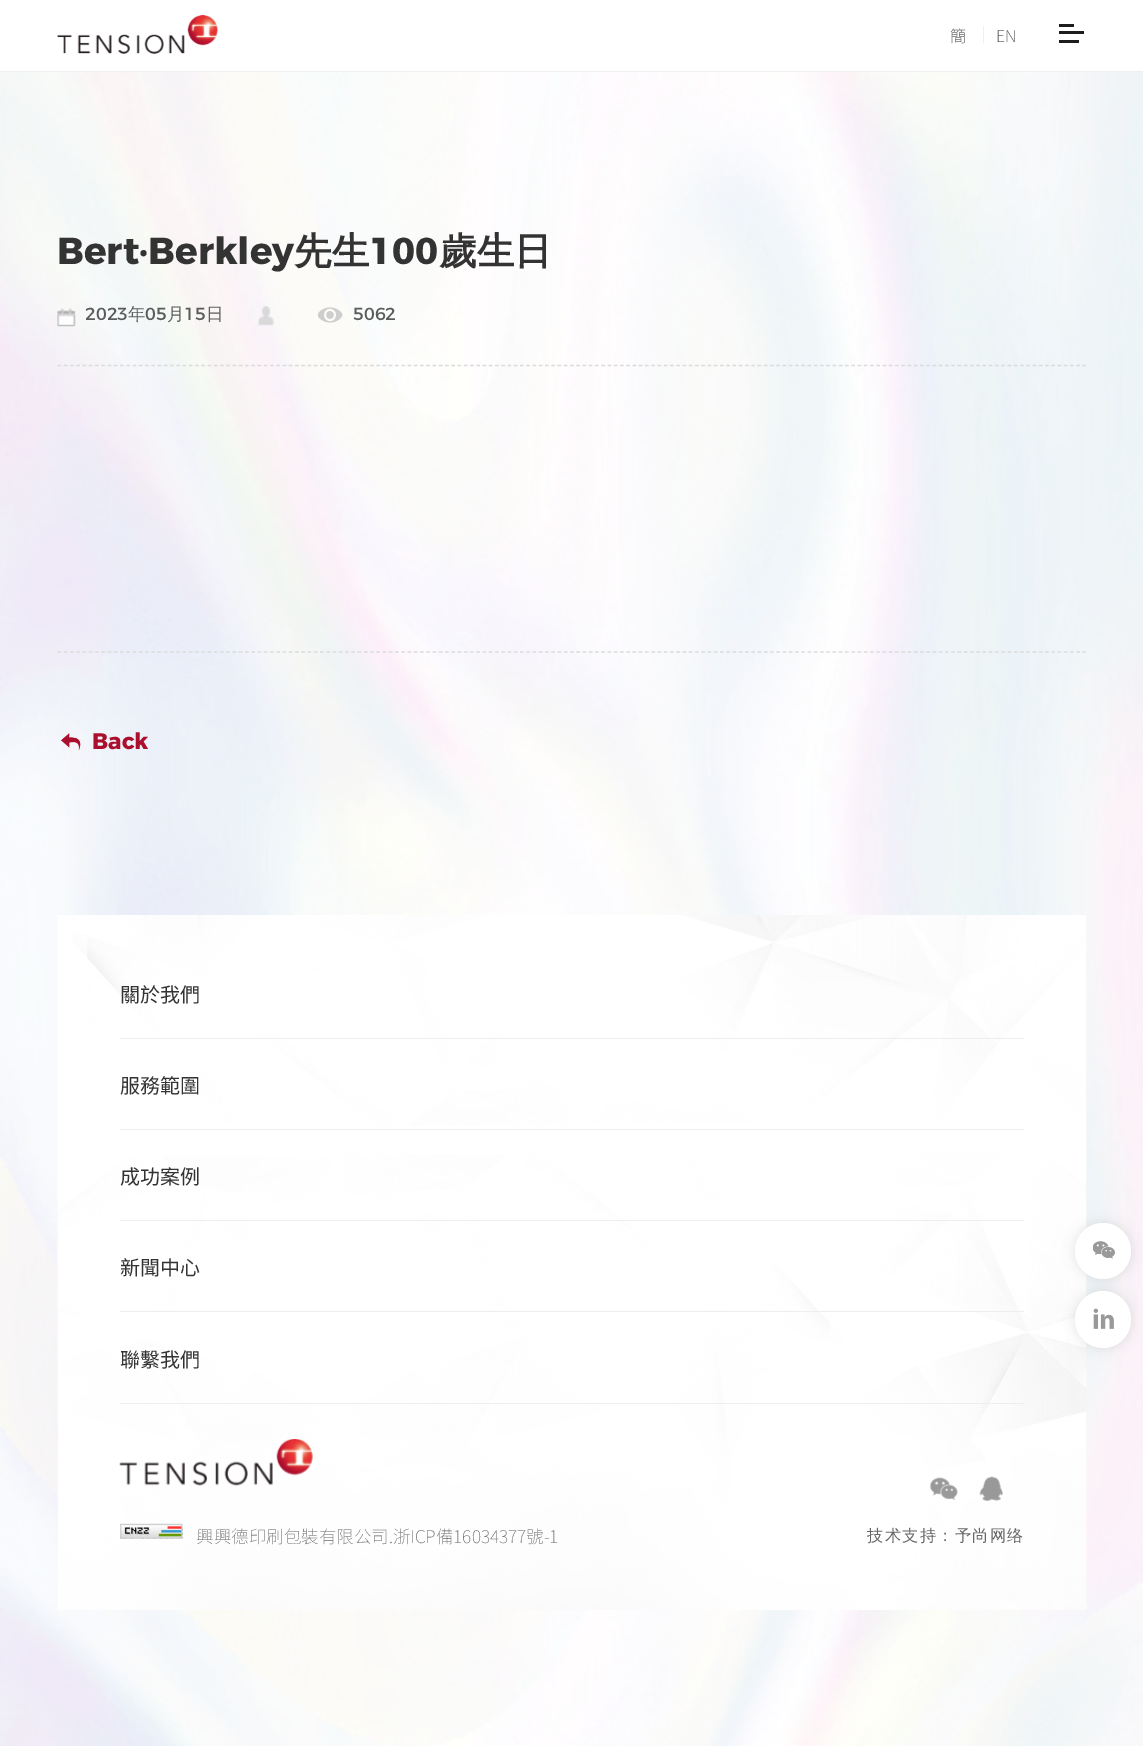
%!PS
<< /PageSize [1143 1746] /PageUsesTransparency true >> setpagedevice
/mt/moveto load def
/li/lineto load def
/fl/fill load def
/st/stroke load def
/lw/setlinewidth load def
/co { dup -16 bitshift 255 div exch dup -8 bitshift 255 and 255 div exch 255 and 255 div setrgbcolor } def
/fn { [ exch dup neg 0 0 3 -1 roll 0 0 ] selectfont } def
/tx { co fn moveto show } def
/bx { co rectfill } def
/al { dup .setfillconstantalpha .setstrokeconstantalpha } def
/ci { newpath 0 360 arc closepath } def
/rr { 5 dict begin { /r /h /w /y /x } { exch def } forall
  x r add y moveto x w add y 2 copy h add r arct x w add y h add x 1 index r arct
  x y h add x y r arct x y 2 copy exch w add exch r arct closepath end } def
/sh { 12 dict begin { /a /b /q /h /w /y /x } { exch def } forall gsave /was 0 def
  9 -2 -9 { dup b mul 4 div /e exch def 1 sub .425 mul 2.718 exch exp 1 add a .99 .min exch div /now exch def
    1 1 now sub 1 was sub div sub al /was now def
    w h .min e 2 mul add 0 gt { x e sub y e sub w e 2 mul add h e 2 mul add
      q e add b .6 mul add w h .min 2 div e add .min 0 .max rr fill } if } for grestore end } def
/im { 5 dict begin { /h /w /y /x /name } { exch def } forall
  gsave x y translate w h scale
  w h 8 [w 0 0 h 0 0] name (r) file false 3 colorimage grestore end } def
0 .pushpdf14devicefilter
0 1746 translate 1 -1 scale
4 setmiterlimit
0 0 1143 1746 16#FFFFFF bx
0 71 1143 1 16#F0F0F0 bx
(media/1.raw) 57 15 161 39 im
983 26 1 17 16#F0F0F0 bx
1059 24 15 3 16#1D1D1D bx
1059 31 25 3 16#1D1D1D bx
1059 40 20 3 16#1D1D1D bx
(media/2.raw) 0 72 1143 1674 im
16#DBDBDB co
1.2 lw
[3.75 2.5] 0 setdash
57.5 365.5 mt 1086 365.5 li st
(media/3.raw) 57 308 19 19 im
(media/4.raw) 258 306 16 20 im
(media/5.raw) 318 307 25 16 im
57.5 652 mt 1086 652 li st
(media/6.raw) 61 733 20 18 im
58 1176 1028 434 16#FFFFFF bx
(media/7.raw) 57 915 1030 695 im
120 1038 904 1 16#EEEEEE bx
120 1129 904 1 16#EEEEEE bx
120 1220 904 1 16#EEEEEE bx
120 1311 904 1 16#EEEEEE bx
120 1403 904 1 16#EEEEEE bx
(media/8.raw) 120 1523 63 16 im
(media/9.raw) 119 1439 194 47 im
(media/10.raw) 929 1477 29 23 im
(media/11.raw) 979 1476 24 25 im
16#000000 co
1075 1223 56 56 28 6 .1 sh
16#FFFFFF co
1103 1251 28 ci fl
(media/12.raw) 1093 1241 22 18 im
16#000000 co
1075 1291 56 57 28 6 .1 sh
16#FFFFFF co
1075 1291 56 57 28 rr fl
(media/13.raw) 1093 1308 21 21 im
(簡) 950 42 /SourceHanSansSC-ExtraLight 16.25 16#333333 tx
(EN) 996 42 /SourceHanSansSC-ExtraLight 16.25 16#333333 tx
(Bert·Berkley) 57 264 /Montserrat-Bold 37.5 16#333333 tx
(先生) 294 264 /WenQuanYiZenHei-Bold 37.5 16#333333 tx
(100) 369 264 /Montserrat-Bold 37.5 16#333333 tx
(歲生日) 439 264 /WenQuanYiZenHei-Bold 37.5 16#333333 tx
(2023) 85 320 /Montserrat-Regular 17.5 16#5A5B5B tx
(年) 128 320 /WenQuanYiZenHei-Medium 17.5 16#5A5B5B tx
(05) 145 320 /Montserrat-Regular 17.5 16#5A5B5B tx
(月) 167 320 /WenQuanYiZenHei-Medium 17.5 16#5A5B5B tx
(15) 184 320 /Montserrat-Regular 17.5 16#5A5B5B tx
(日) 206 320 /WenQuanYiZenHei-Medium 17.5 16#5A5B5B tx
(5062) 353 320 /Montserrat-Regular 17.5 16#5A5B5B tx
(Back) 92 749 /Montserrat-Bold 22.5 16#AA0F2E tx
(關於我們) 120 1002 /SourceHanSansSC-Regular 20 16#333333 tx
(服務範圍) 120 1093 /SourceHanSansSC-Regular 20 16#333333 tx
(成功案例) 120 1184 /SourceHanSansSC-Regular 20 16#333333 tx
(新聞中心) 120 1275 /SourceHanSansSC-Regular 20 16#333333 tx
(聯繫我們) 120 1367 /SourceHanSansSC-Regular 20 16#333333 tx
(興興德印刷包裝有限公司.浙ICP備16034377號-1) 196 1543 /SourceHanSansSC-ExtraLight 17.5 16#666666 tx
/WenQuanYiZenHei-Medium 16.25 fn
867 1541 mt 1.25 0 (技术支持：予尚网络) ashow
.poppdf14devicefilter showpage
